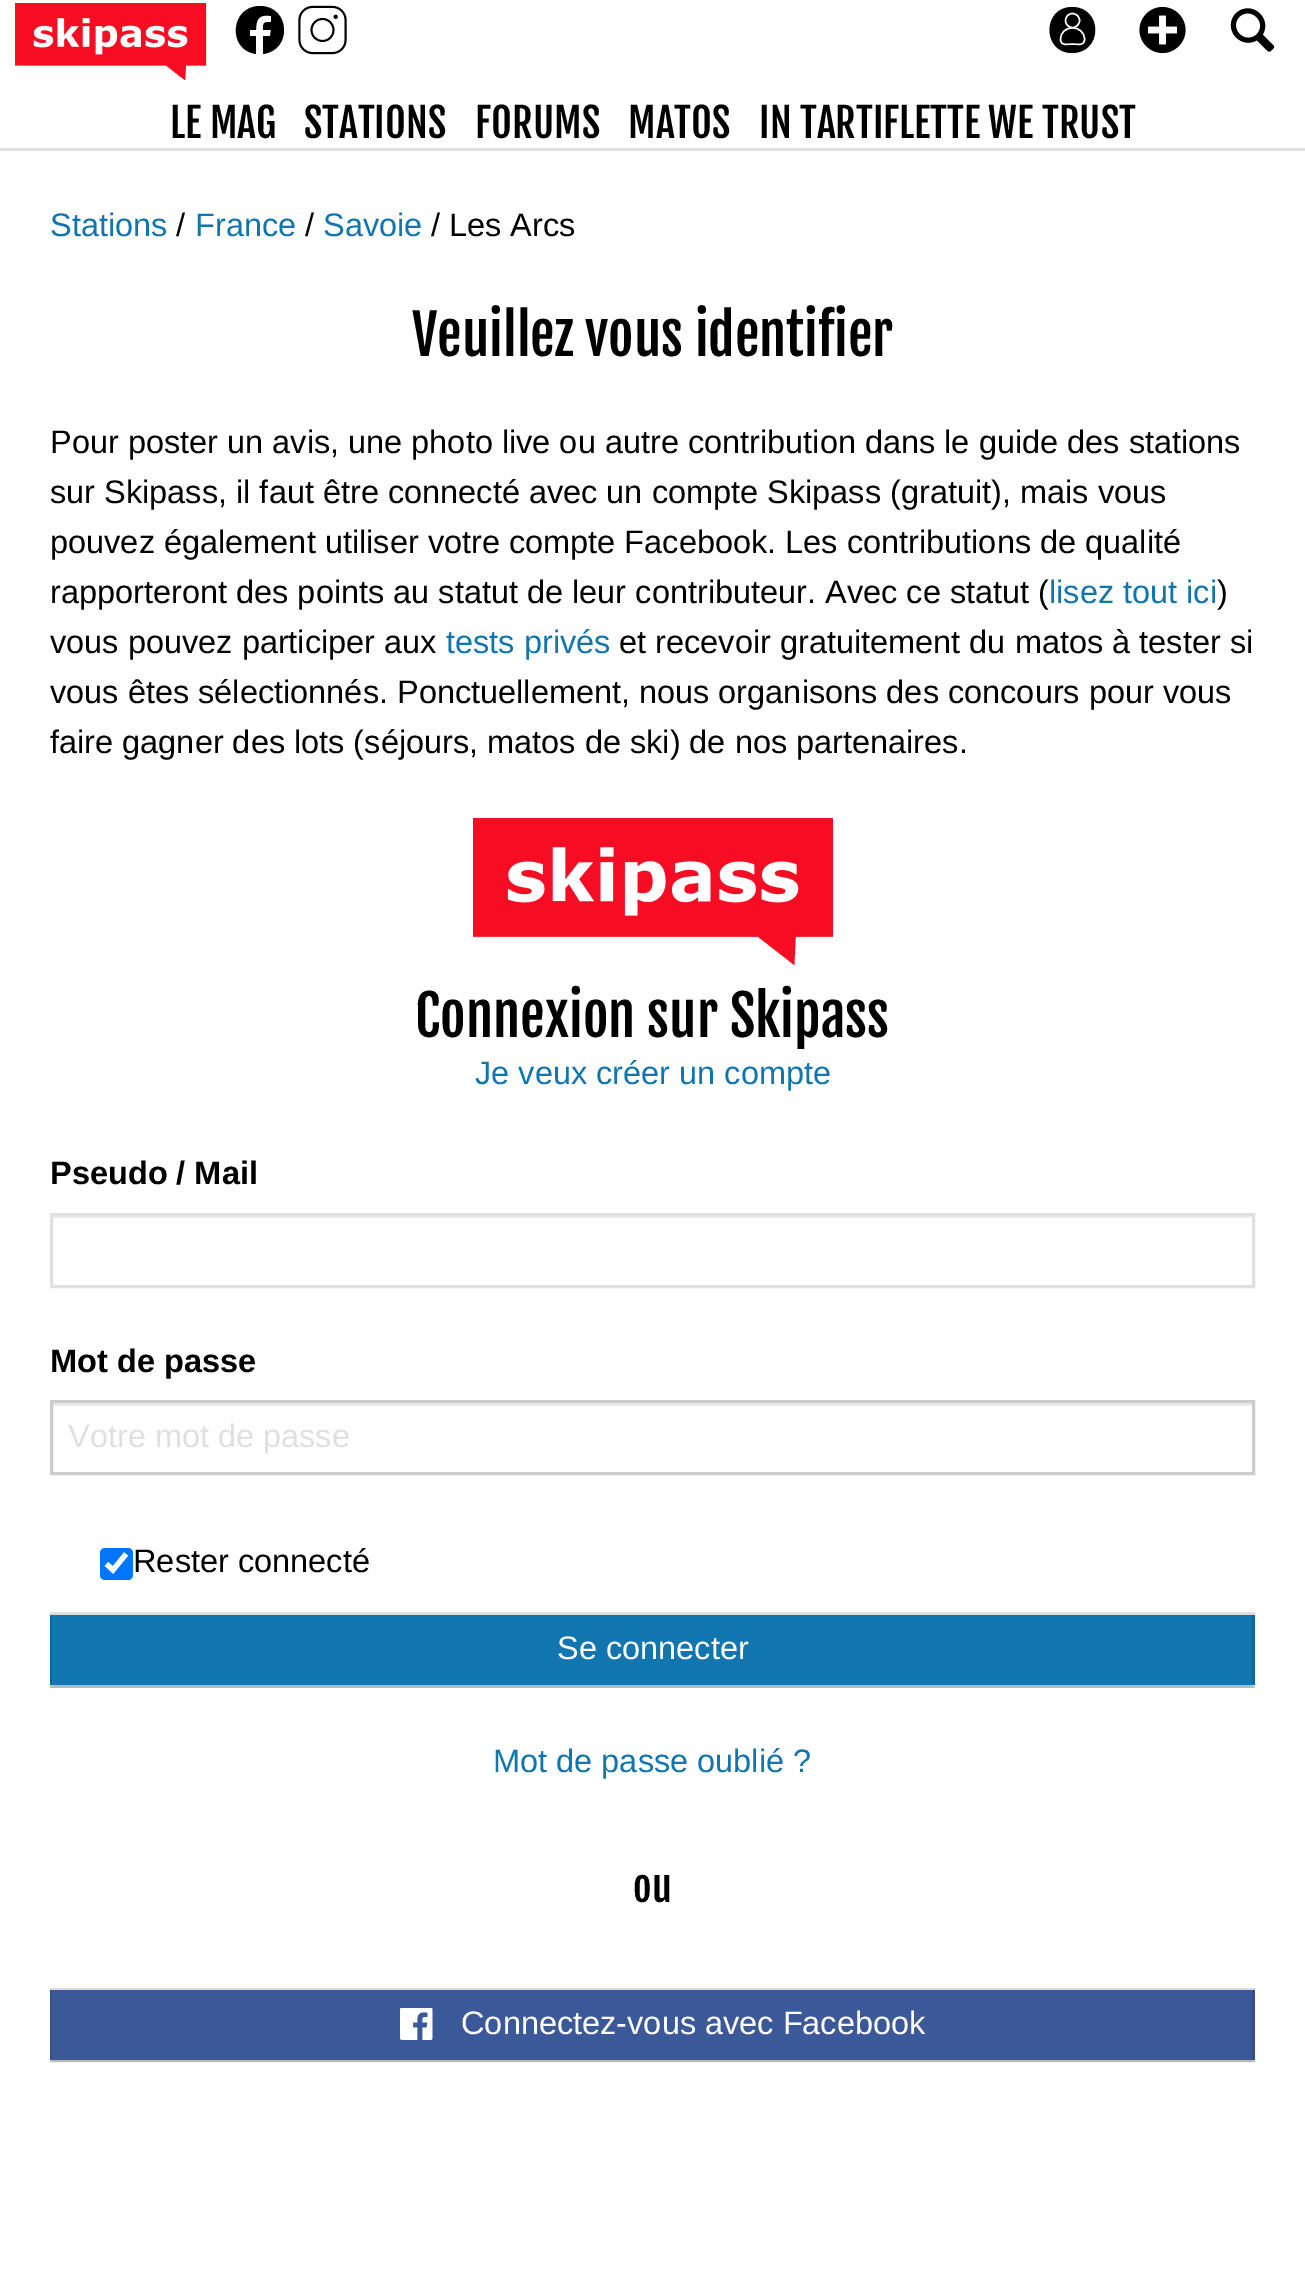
%!PS
<< /PageSize [1305 2270] /PageUsesTransparency true >> setpagedevice
/mt/moveto load def
/li/lineto load def
/ct/curveto load def
/cp/closepath load def
/fl/fill load def
/st/stroke load def
/lw/setlinewidth load def
/co { dup -16 bitshift 255 div exch dup -8 bitshift 255 and 255 div exch 255 and 255 div setrgbcolor } def
/fn { [ exch dup neg 0 0 3 -1 roll 0 0 ] selectfont } def
/tx { co fn moveto show } def
/bx { co rectfill } def
/al { dup .setfillconstantalpha .setstrokeconstantalpha } def
/ci { newpath 0 360 arc closepath } def
/rr { 5 dict begin { /r /h /w /y /x } { exch def } forall
  x r add y moveto x w add y 2 copy h add r arct x w add y h add x 1 index r arct
  x y h add x y r arct x y 2 copy exch w add exch r arct closepath end } def
/im { 5 dict begin { /h /w /y /x /name } { exch def } forall
  gsave x y translate w h scale
  w h 8 [w 0 0 h 0 0] name (r) file false 3 colorimage grestore end } def
0 .pushpdf14devicefilter
0 2270 translate 1 -1 scale
4 setmiterlimit
0 0 1305 2270 16#FFFFFF bx
0 148 1305 3 16#E0E0E0 bx
(media/1.raw) 15 3 192 77 im
16#000000 co
260 6 mt 230 6 227 50 256 54 ct 256 36 li 250 36 li 250 30 li 256 30 li 256 19 259 14 271 16 ct 271 22 li 263 22 263 23 263 30 ct 271 30 li 270 36 li 263 36 li 263 54 li 293 50 290 6 260 6 ct cp fl
(media/2.raw) 298 5 49 50 im
1072 7 mt 1042 7 1042 53 1072 53 ct 1103 53 1103 7 1072 7 ct cp fl
16#FFFFFF co
1.4 lw
1072.5 20.5 7 ci st
1084.5 39.5 mt 1084.5 46.5 1077 44 1072.5 44 ct 1068 44 1060.5 46.5 1060.5 39.5 ct 1060.5 24 1084.5 24 1084.5 39.5 ct cp st
(media/3.raw) 1139 6 47 48 im
(media/4.raw) 1230 8 45 44 im
(media/5.raw) 473 818 360 148 im
53 1216 1200 2 16#ECECEC bx
16#E0E0E0 co
3 lw
51.5 1214.5 1202 72 rectstroke
53 1403 1200 3 16#ECECEC bx
16#CCCCCC co
51.5 1401.5 1202 72 rectstroke
16#0075FF co
100 1548 33 32 5 rr fl
16#FFFFFF co
5.2 lw
106.5 1564 mt 113 1570 li 126 1554 li st
50 1613 1205 75 16#F5F5F5 bx
50 1615 1205 70 16#1175AF bx
0.1 al
16#000000 co
50 1612 mt 1255 1612 li 1252 1615 li 52 1615 li cp fl
1255 1612 mt 1255 1688 li 1252 1685 li 1252 1615 li cp fl
0.25 al
1255 1688 mt 50 1688 li 52 1685 li 1252 1685 li cp fl
0.1 al
50 1688 mt 50 1612 li 52 1615 li 52 1685 li cp fl
1 al
50 1988 1205 75 16#F5F5F5 bx
50 1990 1205 70 16#3B5998 bx
16#DDDDDD co
50 1988 mt 1255 1988 li 1252 1990 li 52 1990 li cp fl
0.1 al
16#000000 co
1255 1988 mt 1255 2062 li 1252 2060 li 1252 1990 li cp fl
0.25 al
1255 2062 mt 50 2062 li 52 2060 li 1252 2060 li cp fl
0.1 al
50 2062 mt 50 1988 li 52 1990 li 52 2060 li cp fl
1 al
(media/6.raw) 400 2008 33 32 im
(LE MAG) 170 138 /FjallaOne-Regular 40 16#000000 tx
(STATIONS) 304 138 /FjallaOne-Regular 40 16#000000 tx
(FORUMS) 475 138 /FjallaOne-Regular 40 16#000000 tx
(MATOS) 628 138 /FjallaOne-Regular 40 16#000000 tx
(IN TARTIFLETTE WE TRUST) 759 138 /FjallaOne-Regular 40 16#000000 tx
(Stations) 50 236 /LiberationSans-Regular 32.5 16#1175AF tx
(/) 176 236 /LiberationSans-Regular 32.5 16#000000 tx
(France) 195 236 /LiberationSans-Regular 32.5 16#1175AF tx
(/) 305 236 /LiberationSans-Regular 32.5 16#000000 tx
(Savoie) 323 236 /LiberationSans-Regular 32.5 16#1175AF tx
(/ Les Arcs) 431 236 /LiberationSans-Regular 32.5 16#000000 tx
(Veuillez vous identifier) 412 356 /FjallaOne-Regular 55 16#000000 tx
(Pour poster un avis, une photo live ou autre contribution dans le guide des stations) 50 453 /LiberationSans-Regular 32.5 16#000000 tx
(sur Skipass, il faut être connecté avec un compte Skipass \(gratuit\), mais vous) 50 503 /LiberationSans-Regular 32.5 16#000000 tx
(pouvez également utiliser votre compte Facebook. Les contributions de qualité) 50 553 /LiberationSans-Regular 32.5 16#000000 tx
(rapporteront des points au statut de leur contributeur. Avec ce statut \() 50 603 /LiberationSans-Regular 32.5 16#000000 tx
(lisez tout ici) 1049 603 /LiberationSans-Regular 32.5 16#1175AF tx
(\)) 1217 603 /LiberationSans-Regular 32.5 16#000000 tx
(vous pouvez participer aux) 50 653 /LiberationSans-Regular 32.5 16#000000 tx
(tests privés) 446 653 /LiberationSans-Regular 32.5 16#1175AF tx
(et recevoir gratuitement du matos à tester si) 619 653 /LiberationSans-Regular 32.5 16#000000 tx
(vous êtes sélectionnés. Ponctuellement, nous organisons des concours pour vous) 50 703 /LiberationSans-Regular 32.5 16#000000 tx
(faire gagner des lots \(séjours, matos de ski\) de nos partenaires.) 50 753 /LiberationSans-Regular 32.5 16#000000 tx
(Connexion sur Skipass) 415 1037 /FjallaOne-Regular 55.25 16#000000 tx
(Je veux créer un compte) 475 1084 /LiberationSans-Regular 32.5 16#1175AF tx
(Pseudo / Mail) 50 1184 /LiberationSans-Bold 32.5 16#000000 tx
(Mot de passe) 50 1372 /LiberationSans-Bold 32.5 16#000000 tx
(Votre mot de passe) 68 1447 /LiberationSans-Regular 32.5 16#E0E0E0 tx
(Rester connecté) 133 1572 /LiberationSans-Regular 32.5 16#000000 tx
(Se connecter) 557 1659 /LiberationSans-Regular 32.5 16#FFFFFF tx
(Mot de passe oublié ?) 493 1772 /LiberationSans-Regular 32.5 16#1175AF tx
(ou) 633 1902 /FjallaOne-Regular 40 16#000000 tx
(Connectez-vous avec Facebook) 461 2034 /LiberationSans-Regular 32.5 16#FFFFFF tx
.poppdf14devicefilter showpage
